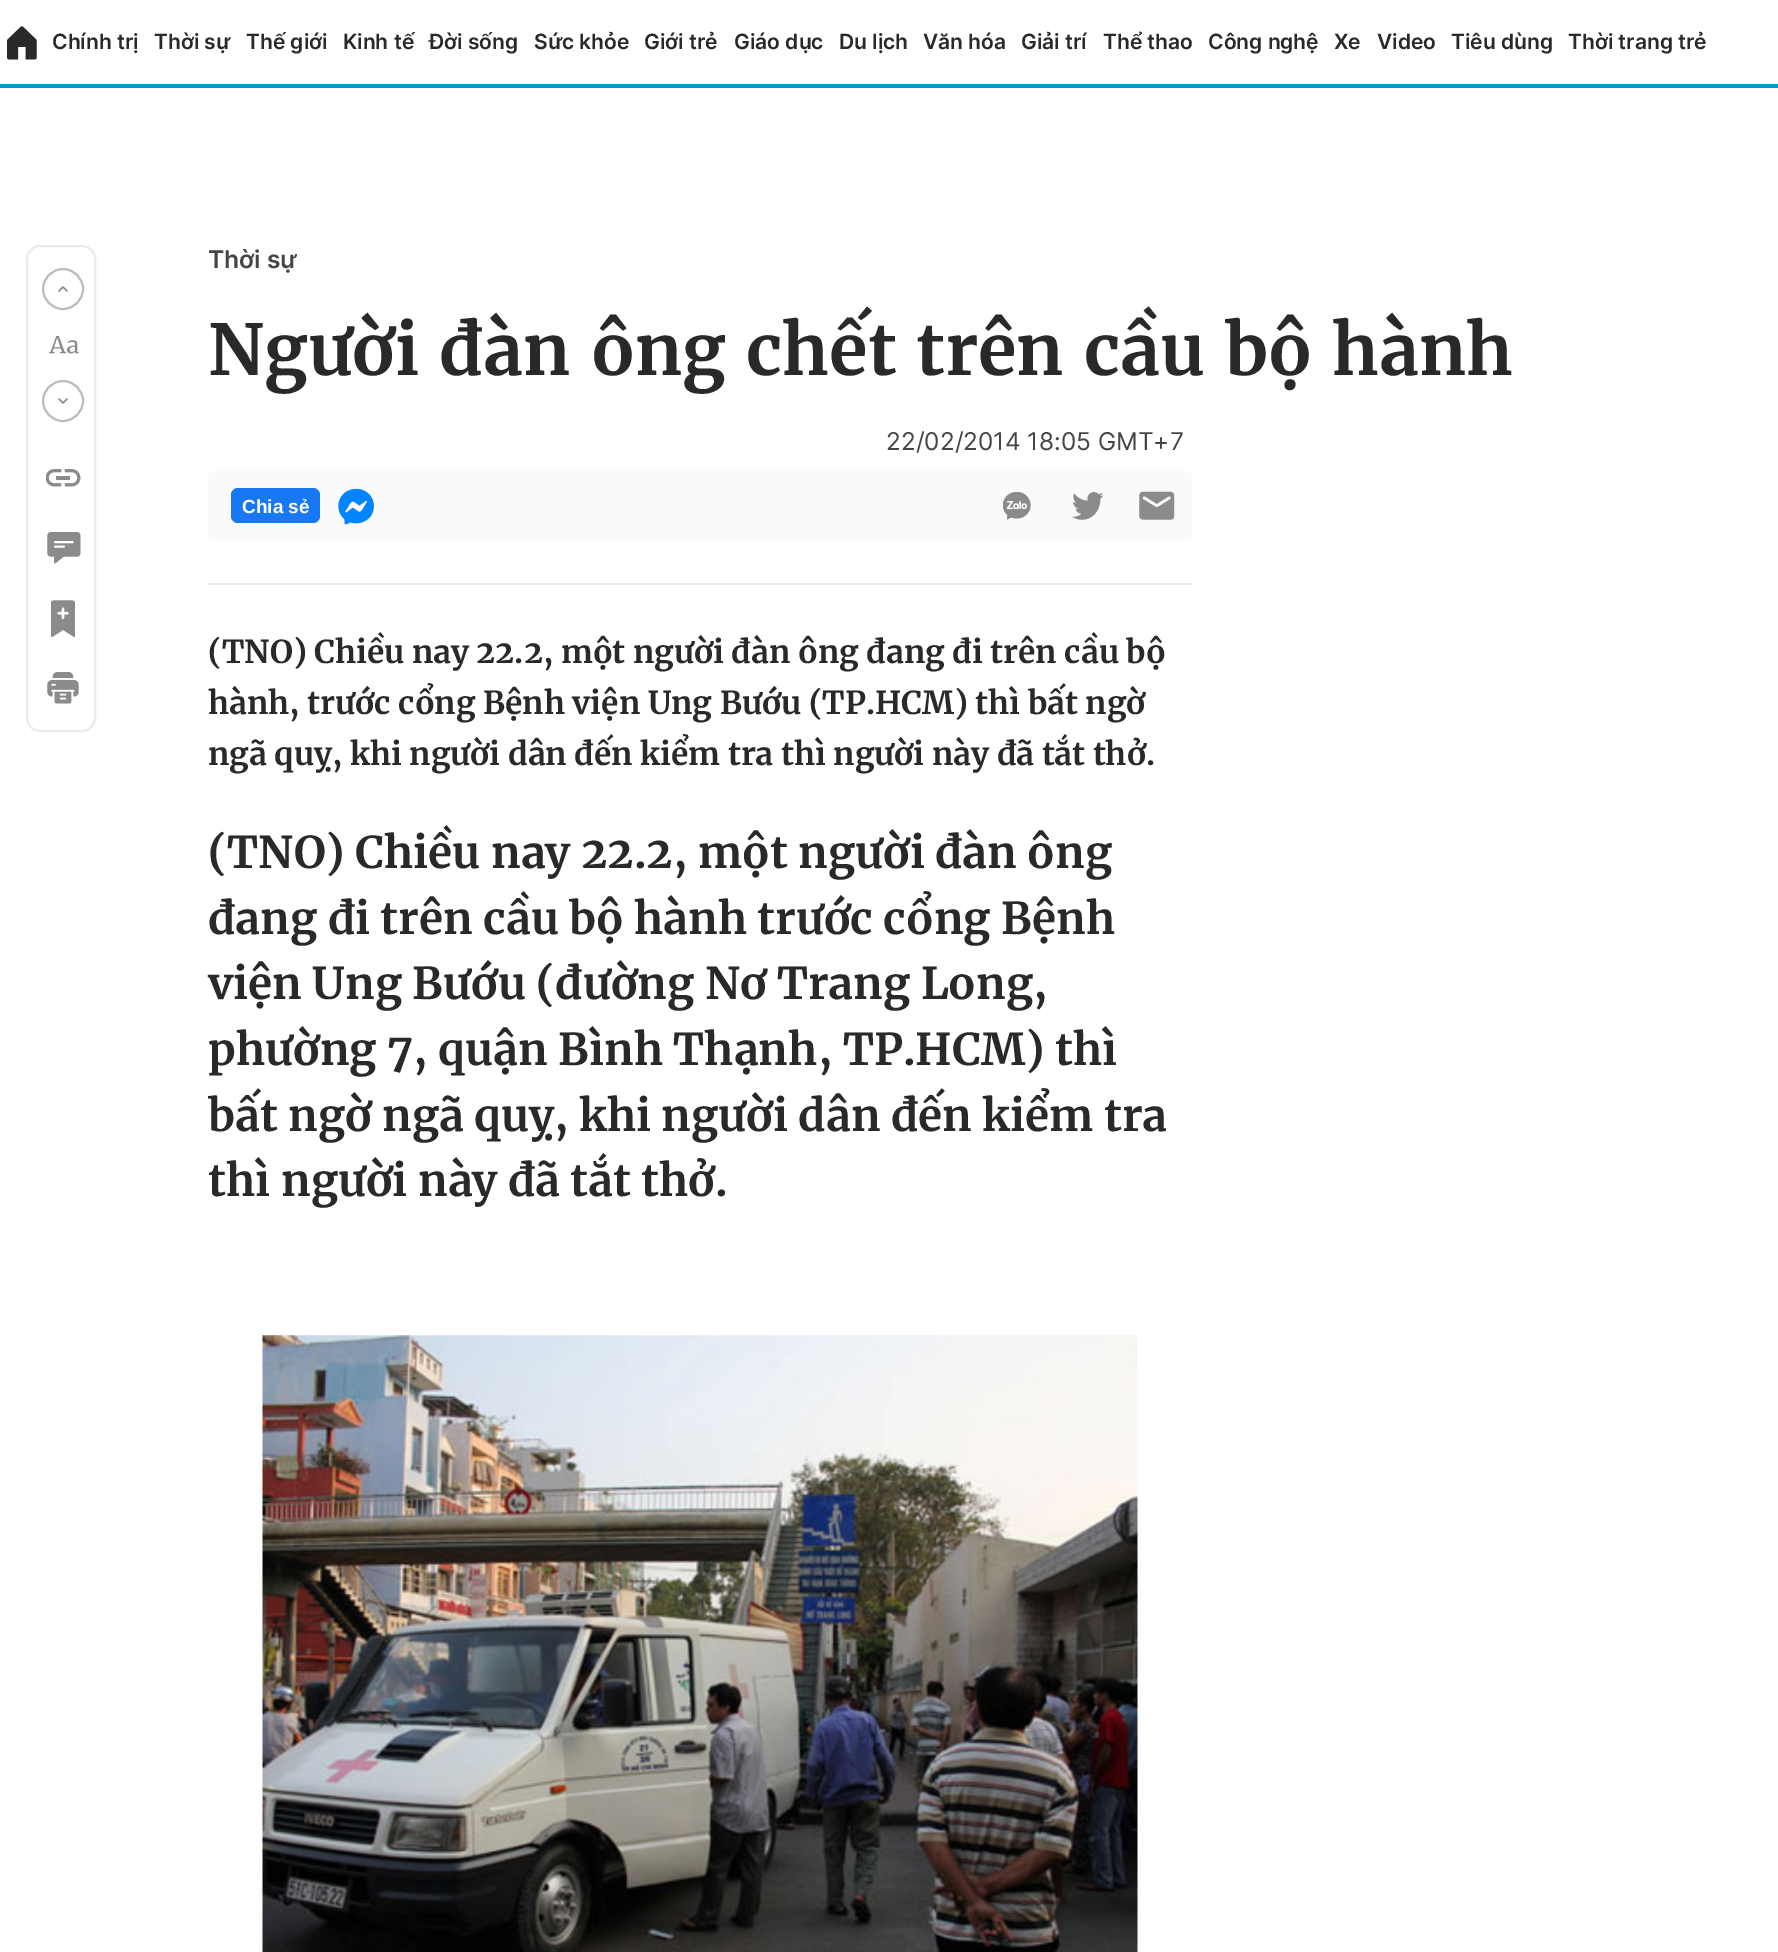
%!PS
<< /PageSize [1778 1952] >> setpagedevice
/mt/moveto load def
/fl/fill load def
/st/stroke load def
/lw/setlinewidth load def
/co { dup -16 bitshift 255 div exch dup -8 bitshift 255 and 255 div exch 255 and 255 div setrgbcolor } def
/fn { [ exch dup neg 0 0 3 -1 roll 0 0 ] selectfont } def
/tx { co fn moveto show } def
/bx { co rectfill } def
/ci { newpath 0 360 arc closepath } def
/rr { 5 dict begin { /r /h /w /y /x } { exch def } forall
  x r add y moveto x w add y 2 copy h add r arct x w add y h add x 1 index r arct
  x y h add x y r arct x y 2 copy exch w add exch r arct closepath end } def
/im { 5 dict begin { /h /w /y /x /name } { exch def } forall
  gsave x y translate w h scale
  w h 8 [w 0 0 h 0 0] name (r) file false 3 colorimage grestore end } def
0 1952 translate 1 -1 scale
4 setmiterlimit
0 0 1778 1952 16#FFFFFF bx
0 84 1778 4 16#0098D1 bx
(media/1.raw) 7 26 30 34 im
16#EBEBEB co
2 lw
27 246 68 485 13 rr st
16#BDBDBD co
63 289 20 ci st
(media/2.raw) 58 286 10 6 im
(media/3.raw) 49 336 30 18 im
63 401 20 ci st
(media/4.raw) 58 398 10 6 im
(media/5.raw) 46 469 35 18 im
(media/6.raw) 47 532 34 32 im
(media/7.raw) 51 600 24 37 im
(media/8.raw) 47 672 32 32 im
16#FAFAFA co
208 471 984 70 7 rr fl
16#1877F2 co
231 488 89 35 7 rr fl
(media/9.raw) 338 488 36 37 im
(media/10.raw) 1003 492 28 28 im
(media/11.raw) 1072 492 32 28 im
(media/12.raw) 1139 491 36 29 im
208 583 984 2 16#EBEBEB bx
(media/13.raw) 262 1335 876 617 im
(Chính trị) 52 49 /Inter-SemiBold 21 16#292929 tx
(Thời sự) 154 49 /Inter-SemiBold 21 16#292929 tx
(Thế giới) 246 49 /Inter-SemiBold 21 16#292929 tx
(Kinh tế) 343 49 /Inter-SemiBold 21 16#292929 tx
(Đời sống) 429 49 /Inter-SemiBold 21 16#292929 tx
(Sức khỏe) 534 49 /Inter-SemiBold 21 16#292929 tx
(Giới trẻ) 644 49 /Inter-SemiBold 21 16#292929 tx
(Giáo dục) 734 49 /Inter-SemiBold 21 16#292929 tx
(Du lịch) 839 49 /Inter-SemiBold 21 16#292929 tx
(Văn hóa) 923 49 /Inter-SemiBold 21 16#292929 tx
(Giải trí) 1021 49 /Inter-SemiBold 21 16#292929 tx
(Thể thao) 1103 49 /Inter-SemiBold 21 16#292929 tx
(Công nghệ) 1208 49 /Inter-SemiBold 21 16#292929 tx
(Xe) 1334 49 /Inter-SemiBold 21 16#292929 tx
(Video) 1377 49 /Inter-SemiBold 21 16#292929 tx
(Tiêu dùng) 1451 49 /Inter-SemiBold 21 16#292929 tx
(Thời trang trẻ) 1568 49 /Inter-SemiBold 21 16#292929 tx
(Thời sự) 208 268 /Inter-SemiBold 24.5 16#454545 tx
/Merriweather-Bold 70 fn
16#292929 co
208 375 mt 3.5 0 32 (Người đàn ông chết trên cầu bộ hành) widthshow
(22/02/2014 18:05 GMT+7) 886 450 /Inter-Regular 24.5 16#454545 tx
(Chia sẻ) 242 513 /LiberationSans-Bold 19 16#FFFFFF tx
(\(TNO\) Chiều nay 22.2, một người đàn ông đang đi trên cầu bộ) 208 663 /Merriweather-Bold 31.5 16#292929 tx
(hành, trước cổng Bệnh viện Ung Bướu \(TP.HCM\) thì bất ngờ) 208 714 /Merriweather-Bold 31.5 16#292929 tx
(ngã quỵ, khi người dân đến kiểm tra thì người này đã tắt thở.) 208 765 /Merriweather-Bold 31.5 16#292929 tx
(\(TNO\) Chiều nay 22.2, một người đàn ông) 208 868 /Merriweather-Bold 43.75 16#292929 tx
(đang đi trên cầu bộ hành trước cổng Bệnh) 208 934 /Merriweather-Bold 43.75 16#292929 tx
(viện Ung Bướu \(đường Nơ Trang Long,) 208 999 /Merriweather-Bold 43.75 16#292929 tx
(phường 7, quận Bình Thạnh, TP.HCM\) thì) 208 1065 /Merriweather-Bold 43.75 16#292929 tx
(bất ngờ ngã quỵ, khi người dân đến kiểm tra) 208 1131 /Merriweather-Bold 43.75 16#292929 tx
(thì người này đã tắt thở.) 208 1196 /Merriweather-Bold 43.75 16#292929 tx
showpage
